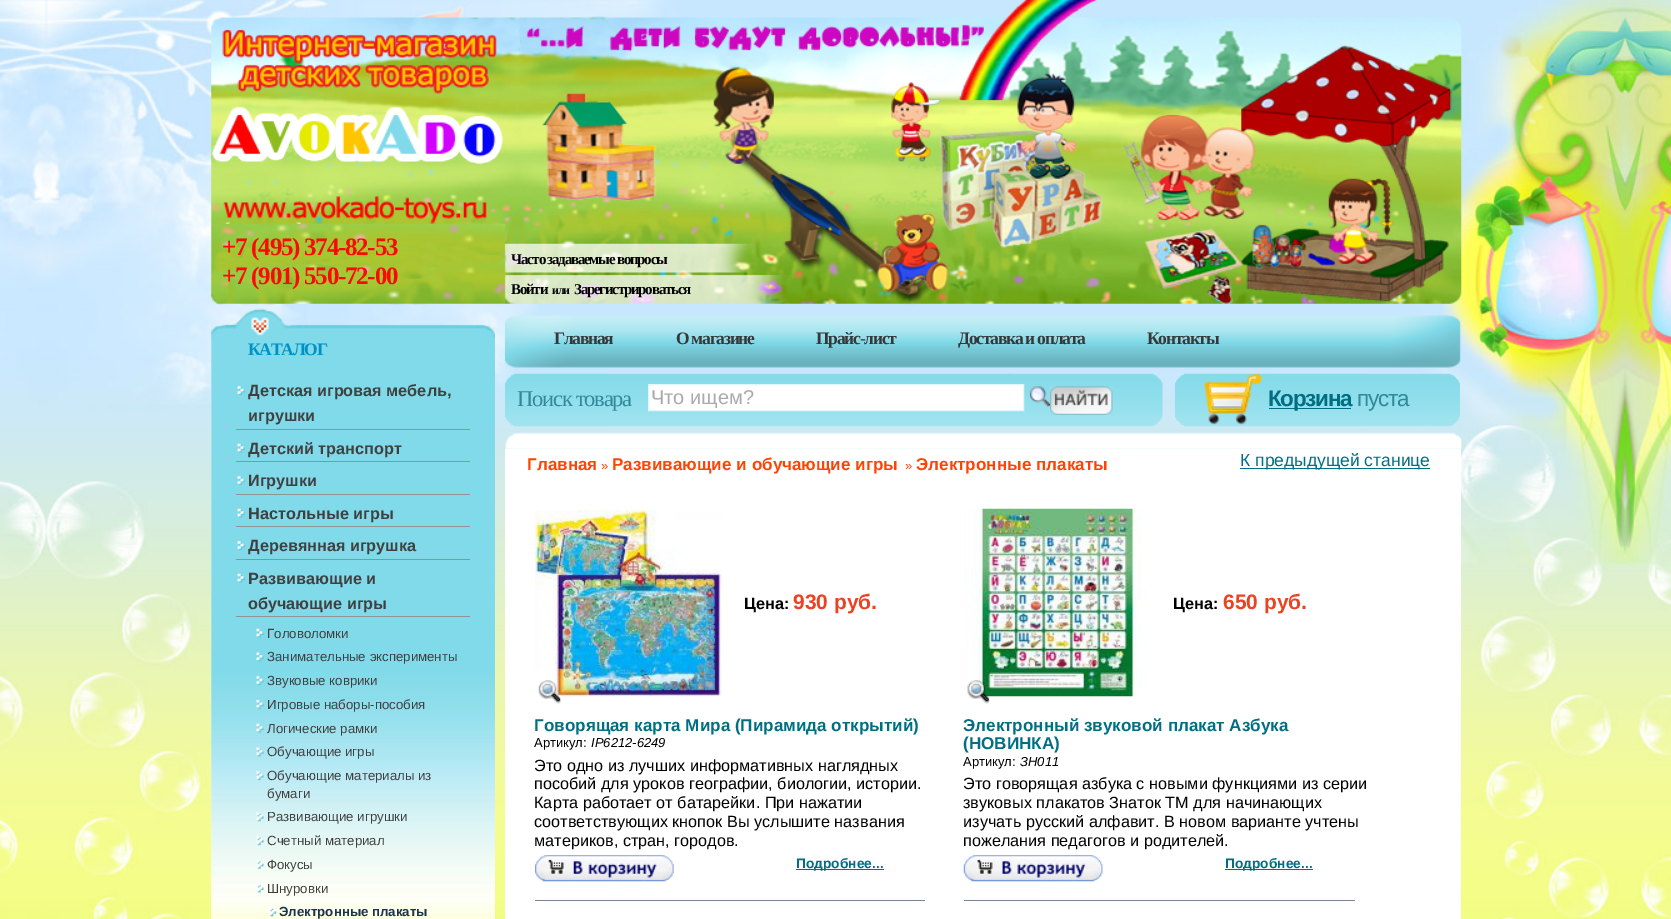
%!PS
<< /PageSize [1671 919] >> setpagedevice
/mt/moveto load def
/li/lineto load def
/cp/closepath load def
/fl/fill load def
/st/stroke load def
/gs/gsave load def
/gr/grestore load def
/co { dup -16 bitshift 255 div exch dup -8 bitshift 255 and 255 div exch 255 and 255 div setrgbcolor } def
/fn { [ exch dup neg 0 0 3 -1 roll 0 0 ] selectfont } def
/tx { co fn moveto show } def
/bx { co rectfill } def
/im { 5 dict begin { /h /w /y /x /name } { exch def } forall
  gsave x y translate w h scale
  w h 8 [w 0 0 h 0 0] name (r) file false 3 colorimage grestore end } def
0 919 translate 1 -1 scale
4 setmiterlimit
0 0 1671 919 16#FFFFFF bx
(media/1.raw) 0 0 1671 919 im
(media/2.raw) 211 0 1251 305 im
(media/3.raw) 212 107 291 57 im
(media/4.raw) 211 308 284 32 im
(media/5.raw) 211 340 284 579 im
236 429 234 1 16#929292 bx
(media/6.raw) 237 386 8 9 im
236 461 234 1 16#929292 bx
(media/7.raw) 237 443 8 10 im
236 494 234 1 16#929292 bx
(media/6.raw) 237 476 8 9 im
236 526 234 1 16#929292 bx
(media/7.raw) 237 508 8 10 im
236 559 234 1 16#929292 bx
(media/6.raw) 237 541 8 9 im
236 616 234 1 16#929292 bx
(media/7.raw) 237 573 8 10 im
(media/8.raw) 256 628 8 10 im
(media/9.raw) 256 652 8 10 im
(media/10.raw) 256 676 8 9 im
(media/11.raw) 256 699 8 10 im
(media/12.raw) 256 723 8 10 im
(media/13.raw) 256 747 8 10 im
(media/14.raw) 256 771 8 10 im
(media/15.raw) 256 812 8 10 im
(media/16.raw) 256 836 8 10 im
(media/17.raw) 256 860 8 9 im
(media/18.raw) 256 884 8 9 im
(media/19.raw) 268 907 9 10 im
(media/20.raw) 505 315 956 53 im
(media/21.raw) 505 373 658 54 im
16#FFFFFF co
648.5 384.5 mt 1023.5 384.5 li 1023.5 410.5 li 648.5 410.5 li cp gs fl gr
16#DFF6FA co
st
(media/22.raw) 1030 386 20 21 im
(media/23.raw) 1050 386 63 29 im
(media/24.raw) 1175 373 285 54 im
1269 408 82 1 16#006E83 bx
(media/25.raw) 505 432 957 17 im
505 449 956 470 16#FFFFFF bx
1240 468 190 1 16#006E83 bx
(media/26.raw) 535 510 188 187 im
(media/27.raw) 538 680 24 24 im
(media/28.raw) 535 855 139 27 im
796 869 88 1 16#006E83 bx
535 900 390 1 16#768799 bx
(media/29.raw) 964 508 179 189 im
(media/30.raw) 967 680 23 24 im
(media/31.raw) 963 855 140 27 im
1225 869 88 1 16#006E83 bx
964 900 391 1 16#768799 bx
/LiberationSerif-Bold 25 fn
16#FB0A03 co
222 255 mt -1.25 0 (+7 \(495\) 374-82-53) ashow
222 284 mt -1.25 0 (+7 \(901\) 550-72-00) ashow
/LiberationSerif-Bold 15 fn
16#000000 co
511 264 mt -1.25 0 (Часто задаваемые вопросы) ashow
511 294 mt -1.25 0 (Войти) ashow
/LiberationSerif-Bold 12 fn
552 294 mt -1.25 0 (или) ashow
/LiberationSerif-Bold 15 fn
574 294 mt -1.25 0 (Зарегистрироваться) ashow
/LiberationSerif-Bold 17.5 fn
16#0092C7 co
248 355 mt -1.25 0 (КАТАЛОГ) ashow
(Детская игровая мебель,) 248 396 /LiberationSans-Bold 16.25 16#404040 tx
(игрушки) 248 421 /LiberationSans-Bold 16.25 16#404040 tx
(Детский транспорт) 248 454 /LiberationSans-Bold 16.25 16#404040 tx
(Игрушки) 248 486 /LiberationSans-Bold 16.25 16#404040 tx
(Настольные игры) 248 519 /LiberationSans-Bold 16.25 16#404040 tx
(Деревянная игрушка) 248 551 /LiberationSans-Bold 16.25 16#404040 tx
(Развивающие и) 248 584 /LiberationSans-Bold 16.25 16#404040 tx
(обучающие игры) 248 609 /LiberationSans-Bold 16.25 16#404040 tx
(Головоломки) 267 638 /LiberationSans-Regular 13.25 16#404040 tx
(Занимательные эксперименты) 267 661 /LiberationSans-Regular 13.25 16#404040 tx
(Звуковые коврики) 267 685 /LiberationSans-Regular 13.25 16#404040 tx
(Игровые наборы-пособия) 267 709 /LiberationSans-Regular 13.25 16#404040 tx
(Логические рамки) 267 733 /LiberationSans-Regular 13.25 16#404040 tx
(Обучающие игры) 267 756 /LiberationSans-Regular 13.25 16#404040 tx
(Обучающие материалы из) 267 780 /LiberationSans-Regular 13.25 16#404040 tx
(бумаги) 267 798 /LiberationSans-Regular 13.25 16#404040 tx
(Развивающие игрушки) 267 821 /LiberationSans-Regular 13.25 16#404040 tx
(Счетный материал) 267 845 /LiberationSans-Regular 13.25 16#404040 tx
(Фокусы) 267 869 /LiberationSans-Regular 13.25 16#404040 tx
(Шнуровки) 267 893 /LiberationSans-Regular 13.25 16#404040 tx
(Электронные плакаты) 279 916 /LiberationSans-Bold 13.25 16#1C334D tx
/LiberationSerif-Bold 17.5 fn
16#373737 co
554 344 mt -1.25 0 (Главная) ashow
676 344 mt -1.25 0 (О магазине) ashow
816 344 mt -1.25 0 (Прайс-лист) ashow
958 344 mt -1.25 0 (Доставка и оплата) ashow
1147 344 mt -1.25 0 (Контакты) ashow
/LiberationSerif-Regular 22.5 fn
16#2F899A co
517 406 mt -1.25 0 (Поиск товара) ashow
(Что ищем?) 651 404 /LiberationSans-Regular 20 16#AAAAAA tx
/LiberationSans-Bold 22.5 fn
16#006E83 co
1268 406 mt -1.25 0 (Корзина) ashow
/LiberationSans-Regular 22.5 fn
16#2F899A co
1357 406 mt -1.25 0 (пуста) ashow
(Главная) 527 470 /LiberationSans-Bold 17.1 16#FF4302 tx
(») 601 470 /LiberationSans-Regular 13 16#FF4302 tx
(Развивающие и обучающие игры) 612 470 /LiberationSans-Bold 17.1 16#FF4302 tx
(») 905 470 /LiberationSans-Regular 13 16#FF4302 tx
(Электронные плакаты) 916 470 /LiberationSans-Bold 17.1 16#FF4302 tx
(К предыдущей станице) 1240 466 /LiberationSans-Regular 17.5 16#006E83 tx
(Цена:) 744 609 /LiberationSans-Bold 16.25 16#000000 tx
(930 руб.) 793 609 /LiberationSans-Bold 21 16#EB4321 tx
(Говорящая карта Мира \(Пирамида открытий\)) 534 731 /LiberationSans-Bold 17.1 16#006E83 tx
(Артикул:) 534 747 /LiberationSans-Regular 13 16#000000 tx
(IP6212-6249) 591 747 /LiberationSans-Italic 13 16#000000 tx
(Это одно из лучших информативных наглядных) 534 771 /LiberationSans-Regular 16.25 16#000000 tx
(пособий для уроков географии, биологии, истории.) 534 789 /LiberationSans-Regular 16.25 16#000000 tx
(Карта работает от батарейки. При нажатии) 534 808 /LiberationSans-Regular 16.25 16#000000 tx
(соответствующих кнопок Вы услышите названия) 534 827 /LiberationSans-Regular 16.25 16#000000 tx
(материков, стран, городов.) 534 846 /LiberationSans-Regular 16.25 16#000000 tx
(Подробнее...) 796 868 /LiberationSans-Bold 13.75 16#006E83 tx
(Цена:) 1173 609 /LiberationSans-Bold 16.25 16#000000 tx
(650 руб.) 1223 609 /LiberationSans-Bold 21 16#EB4321 tx
(Электронный звуковой плакат Азбука) 963 731 /LiberationSans-Bold 17.1 16#006E83 tx
(\(НОВИНКА\)) 963 749 /LiberationSans-Bold 17.1 16#006E83 tx
(Артикул:) 963 766 /LiberationSans-Regular 13 16#000000 tx
(ЗН011) 1020 766 /LiberationSans-Italic 13 16#000000 tx
(Это говорящая азбука с новыми функциями из серии) 963 789 /LiberationSans-Regular 16.25 16#000000 tx
(звуковых плакатов Знаток ТМ для начинающих) 963 808 /LiberationSans-Regular 16.25 16#000000 tx
(изучать русский алфавит. В новом варианте учтены) 963 827 /LiberationSans-Regular 16.25 16#000000 tx
(пожелания педагогов и родителей.) 963 846 /LiberationSans-Regular 16.25 16#000000 tx
(Подробнее...) 1225 868 /LiberationSans-Bold 13.75 16#006E83 tx
showpage
